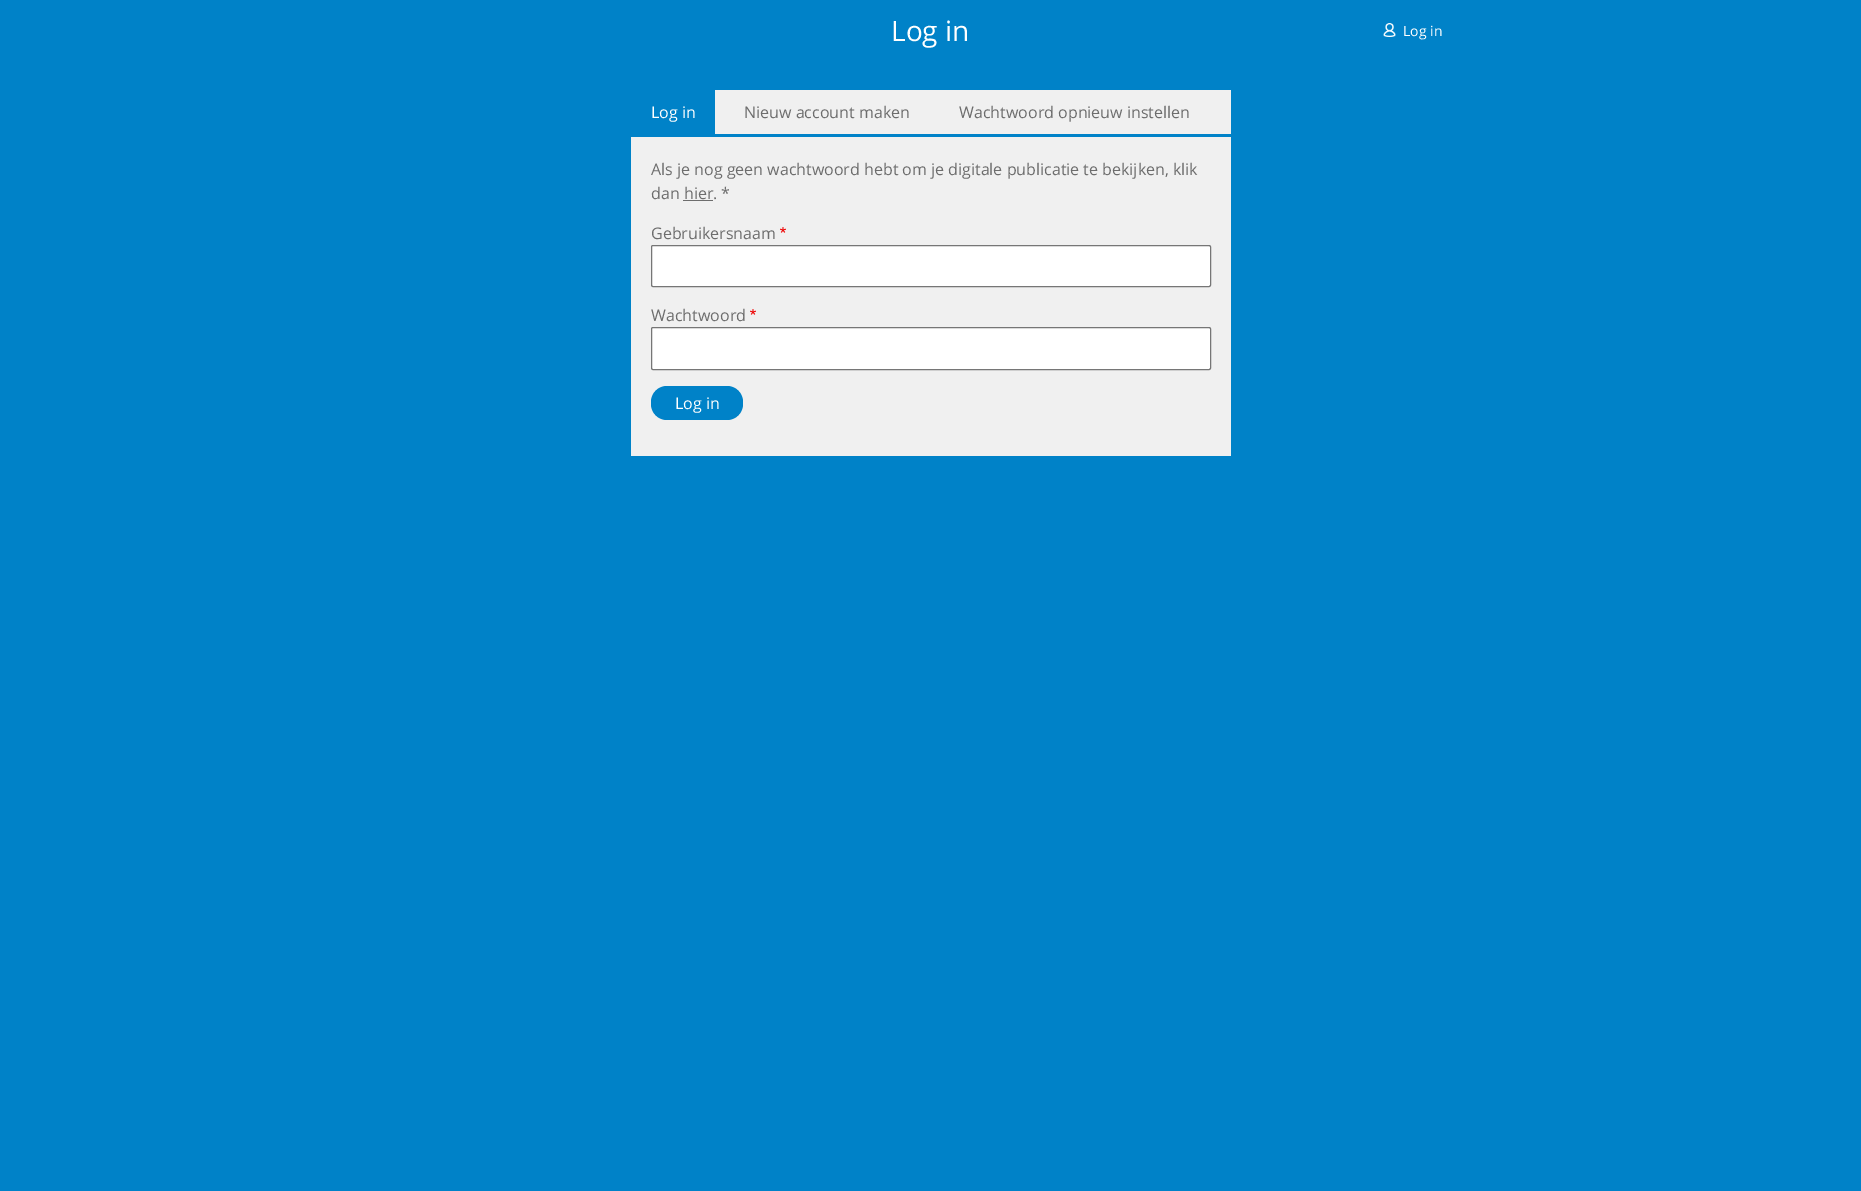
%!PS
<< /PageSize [1861 1191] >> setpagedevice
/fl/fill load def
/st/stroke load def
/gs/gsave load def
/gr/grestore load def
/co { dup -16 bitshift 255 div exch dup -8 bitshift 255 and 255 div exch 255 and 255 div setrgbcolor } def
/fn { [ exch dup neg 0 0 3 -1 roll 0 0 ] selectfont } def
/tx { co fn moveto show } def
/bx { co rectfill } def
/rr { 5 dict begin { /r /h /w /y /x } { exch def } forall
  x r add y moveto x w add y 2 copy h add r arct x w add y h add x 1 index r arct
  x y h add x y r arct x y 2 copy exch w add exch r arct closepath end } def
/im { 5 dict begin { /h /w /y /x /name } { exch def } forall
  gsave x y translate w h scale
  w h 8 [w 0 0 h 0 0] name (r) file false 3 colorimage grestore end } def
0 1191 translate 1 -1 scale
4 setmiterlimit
0 0 1861 1191 16#0082C8 bx
(media/1.raw) 1383 23 13 14 im
715 90 516 44 16#F0F0F0 bx
631 137 600 319 16#F0F0F0 bx
683 200 30 1 16#6D6D6D bx
(media/2.raw) 780 227 6 6 im
16#FFFFFF co
651.5 245.5 559 41 1.5 rr gs fl gr
16#767676 co
st
(media/2.raw) 750 309 6 6 im
16#FFFFFF co
651.5 327.5 559 42 1.5 rr gs fl gr
16#767676 co
st
16#0082C8 co
651 386 92 34 16 rr fl
(Log in) 891 41 /OpenSans-Regular 28 16#FFFFFF tx
(Log in) 1403 36 /OpenSans-Regular 14 16#FFFFFF tx
(Log in) 651 118 /OpenSans-Regular 16 16#FFFFFF tx
(Nieuw account maken) 744 118 /OpenSans-Regular 16 16#6D6D6D tx
(Wachtwoord opnieuw instellen) 959 118 /OpenSans-Regular 16 16#6D6D6D tx
(Als je nog geen wachtwoord hebt om je digitale publicatie te bekijken, klik) 651 175 /OpenSans-Regular 16 16#6D6D6D tx
(dan hier. *) 651 199 /OpenSans-Regular 16 16#6D6D6D tx
(Gebruikersnaam) 651 239 /OpenSans-Regular 16 16#6D6D6D tx
(Wachtwoord) 651 321 /OpenSans-Regular 16 16#6D6D6D tx
(Log in) 675 409 /OpenSans-Regular 16 16#FFFFFF tx
showpage
